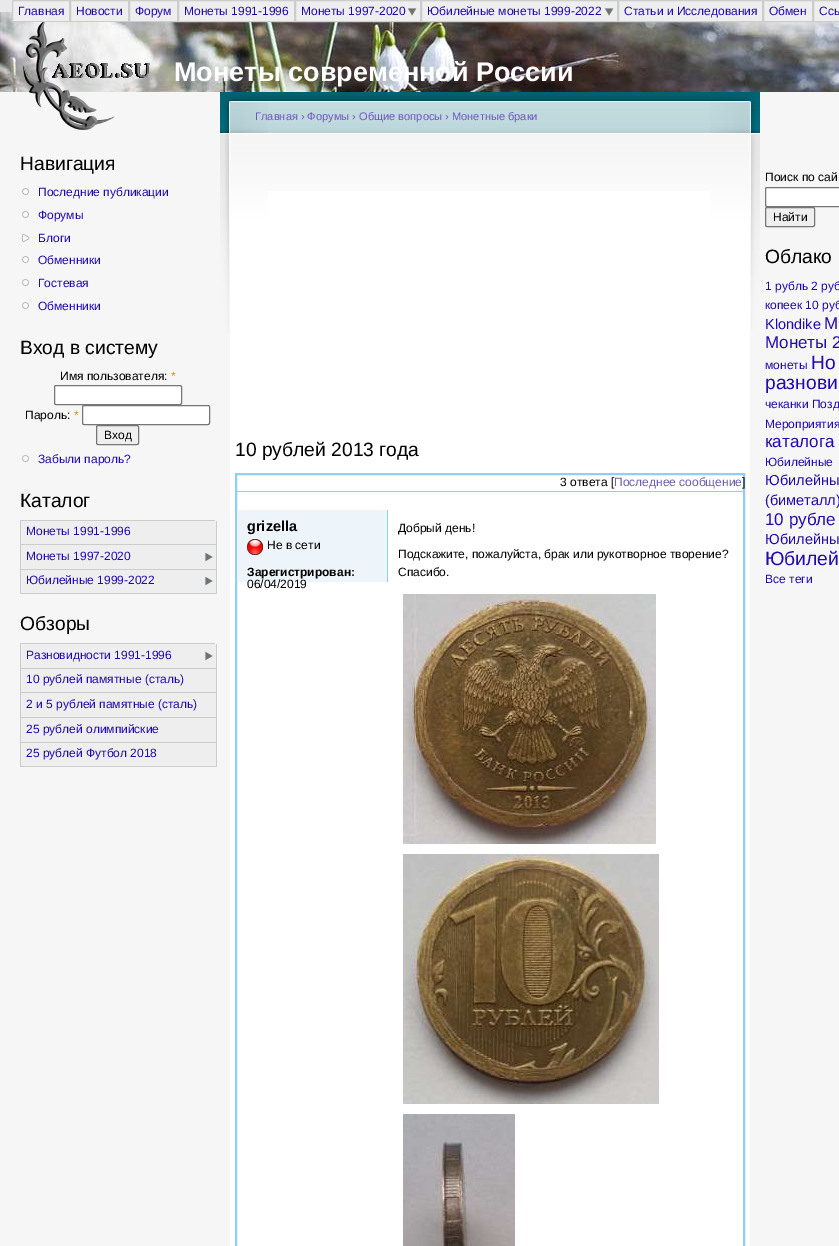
%!PS
<< /PageSize [839 1246] >> setpagedevice
/mt/moveto load def
/li/lineto load def
/cp/closepath load def
/fl/fill load def
/st/stroke load def
/gs/gsave load def
/gr/grestore load def
/lw/setlinewidth load def
/co { dup -16 bitshift 255 div exch dup -8 bitshift 255 and 255 div exch 255 and 255 div setrgbcolor } def
/fn { [ exch dup neg 0 0 3 -1 roll 0 0 ] selectfont } def
/tx { co fn moveto show } def
/bx { co rectfill } def
/rr { 5 dict begin { /r /h /w /y /x } { exch def } forall
  x r add y moveto x w add y 2 copy h add r arct x w add y h add x 1 index r arct
  x y h add x y r arct x y 2 copy exch w add exch r arct closepath end } def
/im { 5 dict begin { /h /w /y /x /name } { exch def } forall
  gsave x y translate w h scale
  w h 8 [w 0 0 h 0 0] name (r) file false 3 colorimage grestore end } def
0 1246 translate 1 -1 scale
4 setmiterlimit
0 0 839 1246 16#F6F6F6 bx
0 0 12 12 16#EAE9E9 bx
(media/2.raw) 0 12 839 80 im
16#EEEEEE co
12.5 .5 mt 69.5 .5 li 69.5 21.5 li 12.5 21.5 li cp gs fl gr
16#CCCCCC co
st
16#EEEEEE co
70.5 .5 mt 128.5 .5 li 128.5 21.5 li 70.5 21.5 li cp gs fl gr
16#CCCCCC co
st
16#EEEEEE co
129.5 .5 mt 177.5 .5 li 177.5 21.5 li 129.5 21.5 li cp gs fl gr
16#CCCCCC co
st
16#EEEEEE co
178.5 .5 mt 294.5 .5 li 294.5 21.5 li 178.5 21.5 li cp gs fl gr
16#CCCCCC co
st
296 1 124 20 16#EEEEEE bx
(media/1.raw) 407 8 10 8 im
16#CCCCCC co
295.5 .5 125 21 rectstroke
422 1 195 20 16#EEEEEE bx
(media/1.raw) 604 8 10 8 im
16#CCCCCC co
421.5 .5 196 21 rectstroke
16#EEEEEE co
618.5 .5 mt 762.5 .5 li 762.5 21.5 li 618.5 21.5 li cp gs fl gr
16#CCCCCC co
st
16#EEEEEE co
763.5 .5 mt 812.5 .5 li 812.5 21.5 li 763.5 21.5 li cp gs fl gr
16#CCCCCC co
st
16#EEEEEE co
813.5 .5 mt 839.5 .5 li 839.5 21.5 li 813.5 21.5 li cp gs fl gr
16#CCCCCC co
st
(media/3.raw) 23 22 127 108 im
(media/4.raw) 22 188 7 7 im
(media/4.raw) 22 211 7 7 im
(media/5.raw) 22 233 8 10 im
(media/4.raw) 22 256 7 7 im
(media/4.raw) 22 279 7 7 im
(media/4.raw) 22 302 7 7 im
16#FFFFFF co
54.5 385.5 127 19 1.5 rr gs fl gr
16#767676 co
st
16#FFFFFF co
82.5 405.5 127 19 1.5 rr gs fl gr
16#767676 co
st
16#EFEFEF co
96.5 425.5 42 19 1.5 rr gs fl gr
16#767676 co
st
(media/4.raw) 22 455 7 7 im
20 520 195 1 16#CCCCCC bx
21 521 195 23 16#EEEEEE bx
216 521 1 73 16#CCCCCC bx
20 544 197 1 16#CCCCCC bx
20 521 1 24 16#CCCCCC bx
21 545 195 24 16#EEEEEE bx
(media/6.raw) 205 552 8 10 im
20 569 197 1 16#CCCCCC bx
20 545 1 25 16#CCCCCC bx
21 570 195 23 16#EEEEEE bx
(media/6.raw) 205 576 8 10 im
20 593 197 1 16#CCCCCC bx
20 570 1 24 16#CCCCCC bx
20 643 195 1 16#CCCCCC bx
21 644 195 24 16#EEEEEE bx
(media/6.raw) 205 651 8 10 im
216 644 1 123 16#CCCCCC bx
20 668 197 1 16#CCCCCC bx
20 644 1 25 16#CCCCCC bx
21 669 195 23 16#EEEEEE bx
20 692 197 1 16#CCCCCC bx
20 669 1 24 16#CCCCCC bx
21 693 195 24 16#EEEEEE bx
20 717 197 1 16#CCCCCC bx
20 693 1 25 16#CCCCCC bx
21 718 195 24 16#EEEEEE bx
20 742 197 1 16#CCCCCC bx
20 718 1 25 16#CCCCCC bx
21 743 195 23 16#EEEEEE bx
20 766 197 1 16#CCCCCC bx
20 743 1 24 16#CCCCCC bx
230 191 520 1055 16#FFFFFF bx
(media/7.raw) 268 92 442 99 im
(media/8.raw) 710 92 50 239 im
(media/9.raw) 220 92 48 241 im
16#91CDF5 co
2 lw
236 474 508 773 rectstroke
237 491 506 1 16#91CDF5 bx
237 510 150 72 16#EDF5FA bx
(media/10.raw) 247 539 16 16 im
387 510 1 72 16#91CDF5 bx
(media/11.raw) 403 594 253 250 im
(media/12.raw) 403 854 256 250 im
(media/13.raw) 403 1114 112 132 im
16#FFFFFF co
765.5 187.5 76 19 1.5 rr gs fl gr
16#767676 co
1 lw
st
16#EFEFEF co
765.5 207.5 49 19 1.5 rr gs fl gr
16#767676 co
st
(Главная) 18 15 /LiberationSans-Regular 12 16#2509AE tx
(Новости) 76 15 /LiberationSans-Regular 12 16#2509AE tx
(Форум) 135 15 /LiberationSans-Regular 12 16#2509AE tx
(Монеты 1991-1996) 184 15 /LiberationSans-Regular 12 16#2509AE tx
(Монеты 1997-2020) 301 15 /LiberationSans-Regular 12 16#2509AE tx
(Юбилейные монеты 1999-2022) 427 15 /LiberationSans-Regular 12 16#2509AE tx
(Статьи и Исследования) 624 15 /LiberationSans-Regular 12 16#2509AE tx
(Обмен) 769 15 /LiberationSans-Regular 12 16#2509AE tx
(Ссы) 819 15 /LiberationSans-Regular 12 16#2509AE tx
(Монеты современной России) 174 81 /LiberationSans-Bold 27 16#FFFFFF tx
(Навигация) 20 170 /LiberationSans-Regular 19.25 16#000000 tx
(Последние публикации) 38 196 /LiberationSans-Regular 12 16#2509AE tx
(Форумы) 38 219 /LiberationSans-Regular 12 16#2509AE tx
(Блоги) 38 242 /LiberationSans-Regular 12 16#2509AE tx
(Обменники) 38 264 /LiberationSans-Regular 12 16#2509AE tx
(Гостевая) 38 287 /LiberationSans-Regular 12 16#2509AE tx
(Обменники) 38 310 /LiberationSans-Regular 12 16#2509AE tx
(Вход в систему) 20 354 /LiberationSans-Regular 19.25 16#000000 tx
(Имя пользователя:) 60 380 /LiberationSans-Regular 12 16#000000 tx
(*) 171 380 /LiberationSans-Regular 12 16#D39000 tx
(Пароль:) 25 419 /LiberationSans-Regular 12 16#000000 tx
(*) 74 419 /LiberationSans-Regular 12 16#D39000 tx
(Вход) 104 439 /LiberationSans-Regular 12 16#000000 tx
(Забыли пароль?) 38 463 /LiberationSans-Regular 12 16#2509AE tx
(Каталог) 20 507 /LiberationSans-Regular 19.25 16#000000 tx
(Монеты 1991-1996) 26 535 /LiberationSans-Regular 12 16#2509AE tx
(Монеты 1997-2020) 26 560 /LiberationSans-Regular 12 16#2509AE tx
(Юбилейные 1999-2022) 26 584 /LiberationSans-Regular 12 16#2509AE tx
(Обзоры) 20 630 /LiberationSans-Regular 19.25 16#000000 tx
(Разновидности 1991-1996) 26 659 /LiberationSans-Regular 12 16#2509AE tx
(10 рублей памятные \(сталь\)) 26 683 /LiberationSans-Regular 12 16#2509AE tx
(2 и 5 рублей памятные \(сталь\)) 26 708 /LiberationSans-Regular 12 16#2509AE tx
(25 рублей олимпийские) 26 733 /LiberationSans-Regular 12 16#2509AE tx
(25 рублей Футбол 2018) 26 757 /LiberationSans-Regular 12 16#2509AE tx
(Главная › Форумы › Общие вопросы › Монетные браки) 255 120 /LiberationSans-Regular 11.05 16#7056C5 tx
(10 рублей 2013 года) 235 456 /LiberationSans-Regular 19.25 16#000000 tx
(3 ответа [) 560 486 /LiberationSans-Regular 12 16#000000 tx
(Последнее сообщение) 614 486 /LiberationSans-Regular 12 16#6D5FAB tx
(]) 742 486 /LiberationSans-Regular 12 16#000000 tx
(grizella) 247 531 /LiberationSans-Bold 14.5 16#000000 tx
(Не в сети) 267 549 /LiberationSans-Regular 12 16#000000 tx
(Зарегистрирован:) 247 576 /LiberationSans-Bold 12 16#000000 tx
(06/04/2019) 247 588 /LiberationSans-Regular 12 16#000000 tx
(Добрый день!) 398 532 /LiberationSans-Regular 12 16#000000 tx
(Подскажите, пожалуйста, брак или рукотворное творение?) 398 558 /LiberationSans-Regular 12 16#000000 tx
(Спасибо.) 398 576 /LiberationSans-Regular 12 16#000000 tx
(Поиск по сай) 765 181 /LiberationSans-Regular 12 16#000000 tx
(Найти) 773 221 /LiberationSans-Regular 12 16#000000 tx
(Облако) 765 263 /LiberationSans-Regular 19.25 16#000000 tx
(1 рубль 2 руб) 765 290 /LiberationSans-Regular 12 16#2509AE tx
(копеек 10 руб) 765 309 /LiberationSans-Regular 12 16#2509AE tx
(Klondike) 765 329 /LiberationSans-Regular 14.5 16#2509AE tx
(М) 824 329 /LiberationSans-Regular 17 16#2509AE tx
(Монеты 2) 765 348 /LiberationSans-Regular 17 16#2509AE tx
(монеты) 765 369 /LiberationSans-Regular 12 16#2509AE tx
(Но) 811 369 /LiberationSans-Regular 19.25 16#2509AE tx
(разнови) 765 389 /LiberationSans-Regular 19.25 16#2509AE tx
(чеканки Позд) 765 408 /LiberationSans-Regular 12 16#2509AE tx
(Мероприятия) 765 428 /LiberationSans-Regular 12 16#2509AE tx
(каталога) 765 447 /LiberationSans-Regular 17 16#2509AE tx
(Юбилейные) 765 466 /LiberationSans-Regular 12 16#2509AE tx
(Юбилейны) 765 485 /LiberationSans-Regular 14.5 16#2509AE tx
(\(биметалл\)) 765 505 /LiberationSans-Regular 14.5 16#2509AE tx
(10 рубле) 765 525 /LiberationSans-Regular 17 16#2509AE tx
(Юбилейны) 765 544 /LiberationSans-Regular 14.5 16#2509AE tx
(Юбилей) 765 565 /LiberationSans-Regular 19.25 16#2509AE tx
(Все теги) 765 583 /LiberationSans-Regular 12 16#2509AE tx
showpage
